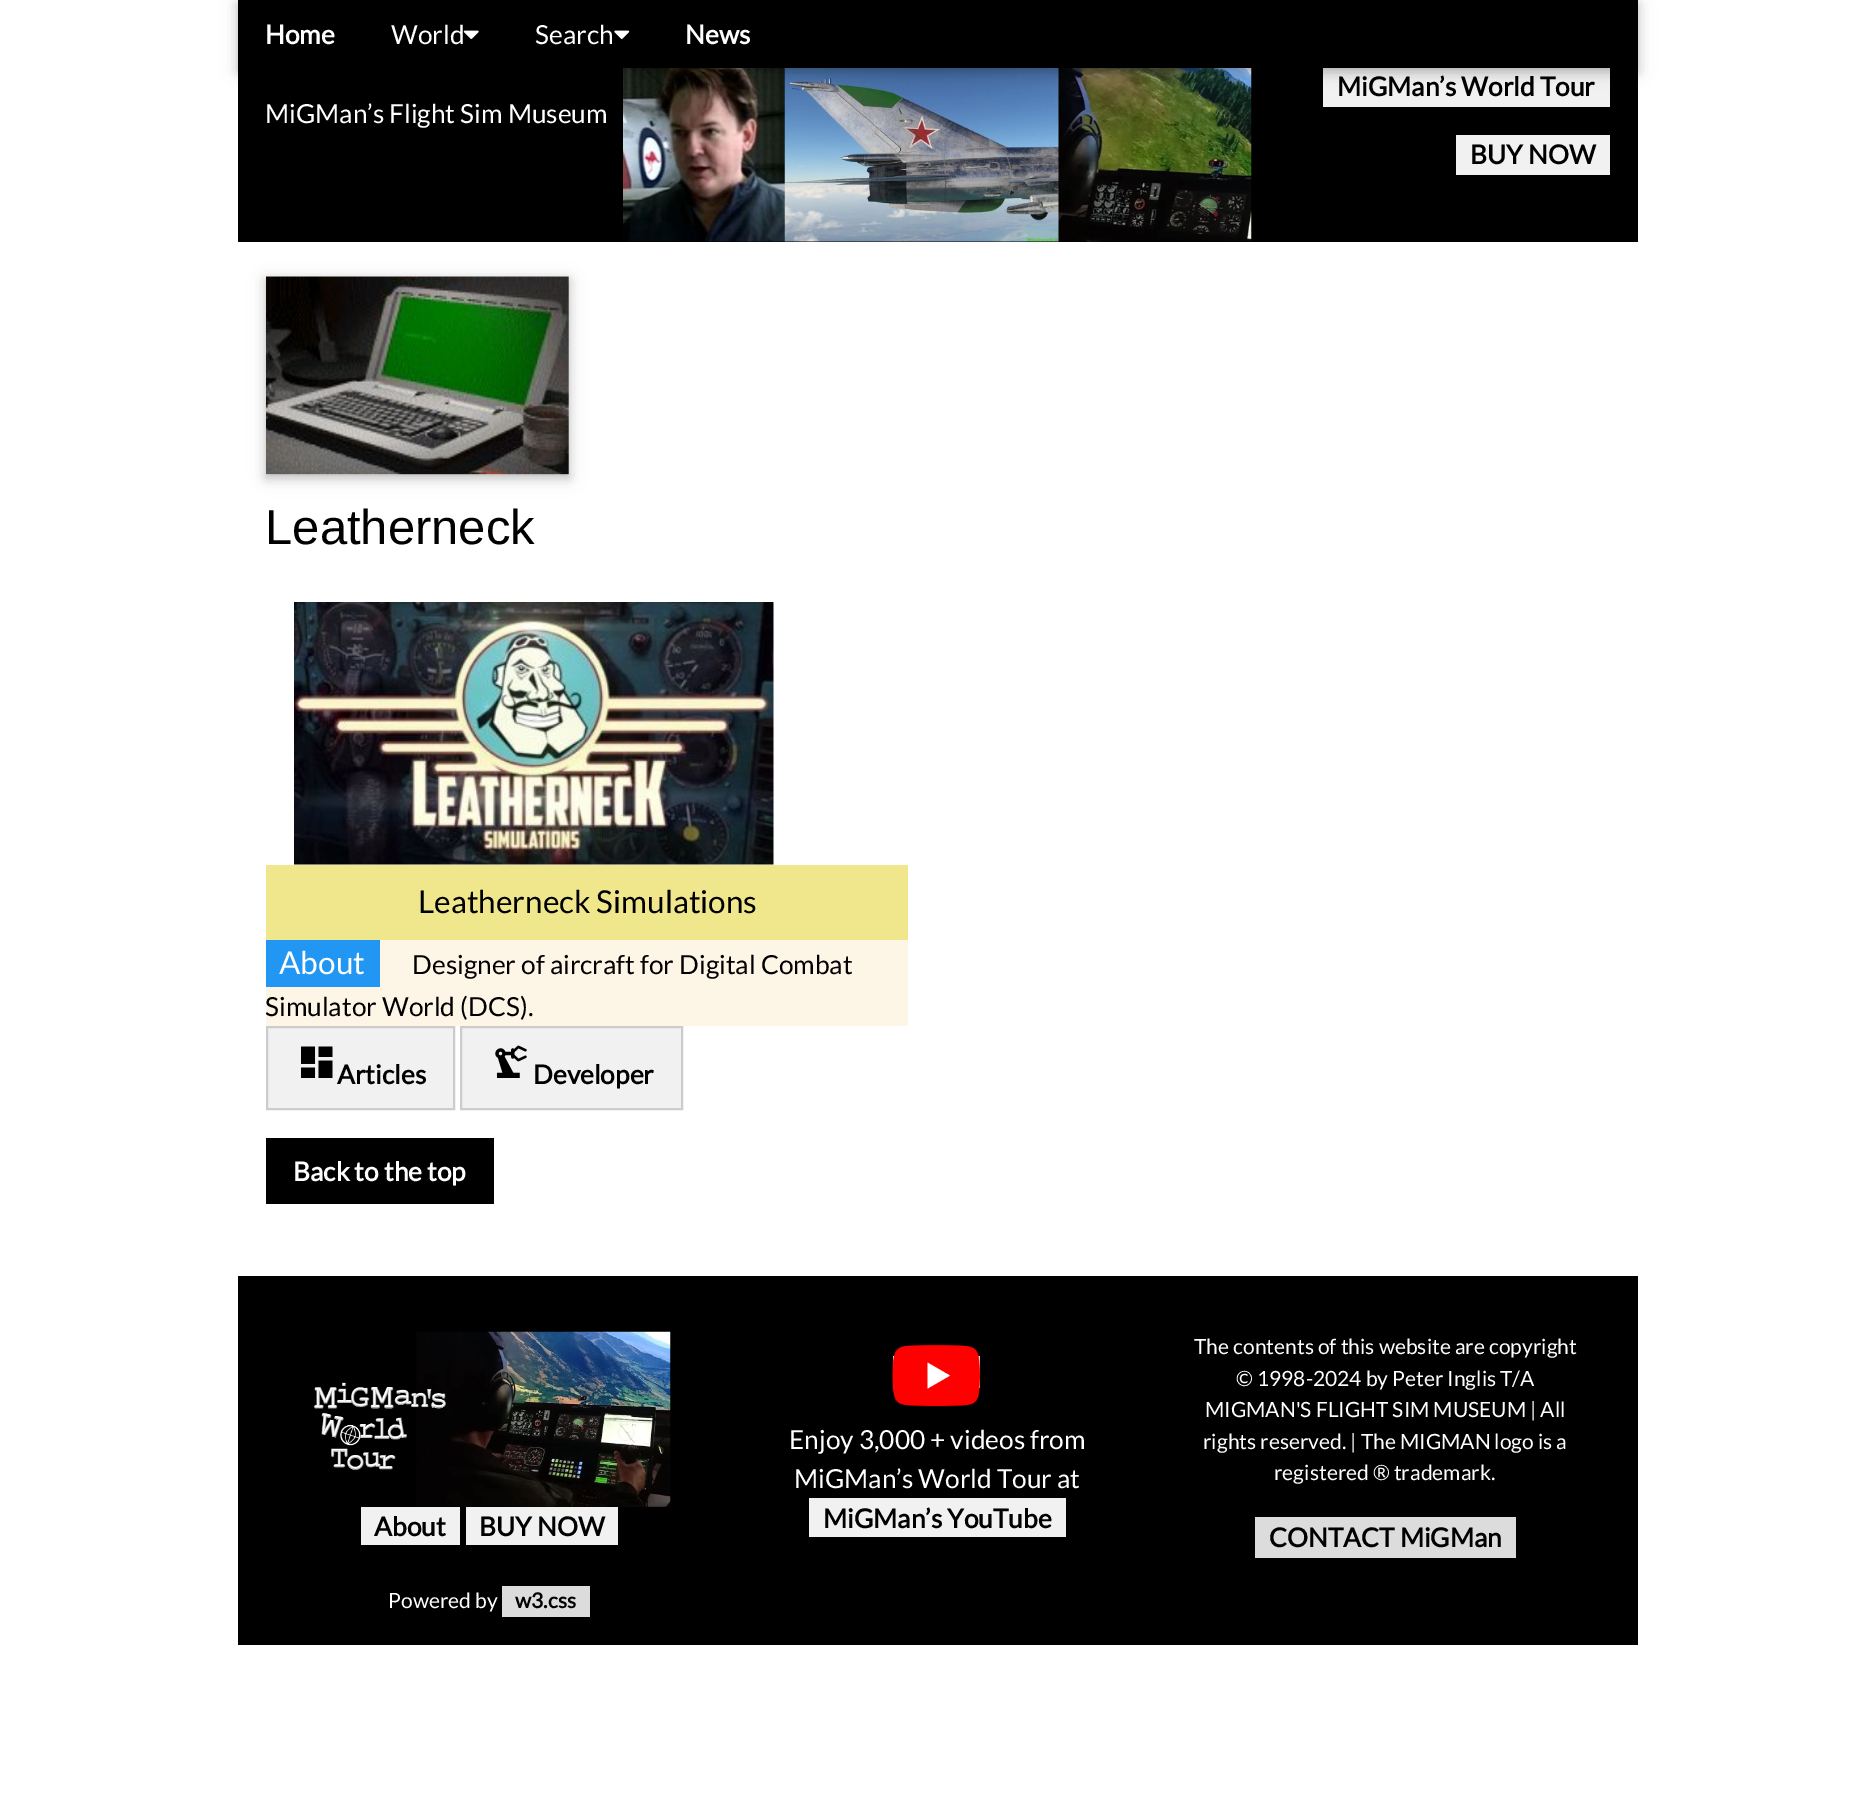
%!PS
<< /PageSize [1873 1796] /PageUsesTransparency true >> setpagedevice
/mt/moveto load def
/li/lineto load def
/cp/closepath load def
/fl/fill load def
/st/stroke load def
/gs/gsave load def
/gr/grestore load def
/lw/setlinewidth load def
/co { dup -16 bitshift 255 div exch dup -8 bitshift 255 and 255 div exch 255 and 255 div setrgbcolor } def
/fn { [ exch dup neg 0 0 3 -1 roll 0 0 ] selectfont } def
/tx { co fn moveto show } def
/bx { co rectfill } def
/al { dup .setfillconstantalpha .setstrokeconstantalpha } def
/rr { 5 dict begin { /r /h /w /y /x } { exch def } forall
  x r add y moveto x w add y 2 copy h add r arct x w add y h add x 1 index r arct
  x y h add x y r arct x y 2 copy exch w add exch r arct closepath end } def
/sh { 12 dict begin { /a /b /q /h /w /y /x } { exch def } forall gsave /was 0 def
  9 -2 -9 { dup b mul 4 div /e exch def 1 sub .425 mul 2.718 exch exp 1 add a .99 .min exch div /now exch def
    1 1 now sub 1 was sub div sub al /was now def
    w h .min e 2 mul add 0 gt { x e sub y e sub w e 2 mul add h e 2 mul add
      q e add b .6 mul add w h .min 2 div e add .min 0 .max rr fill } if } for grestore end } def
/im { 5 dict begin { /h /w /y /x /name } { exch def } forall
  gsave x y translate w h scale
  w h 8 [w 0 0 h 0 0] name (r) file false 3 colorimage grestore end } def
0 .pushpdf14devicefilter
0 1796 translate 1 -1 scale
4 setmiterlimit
0 0 1873 1796 16#FFFFFF bx
238 0 1400 242 16#000000 bx
(media/3.raw) 623 68 629 174 im
1323 68 287 39 16#F1F1F1 bx
gs
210 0 mt 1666 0 li 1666 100 li 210 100 li cp 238 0 mt 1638 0 li 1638 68 li 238 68 li cp eoclip newpath
16#000000 co
238 4 1400 68 0 9 .12 sh
gr
gs
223 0 mt 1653 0 li 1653 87 li 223 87 li cp 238 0 mt 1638 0 li 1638 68 li 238 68 li cp eoclip newpath
16#000000 co
238 4 1400 68 0 4.5 .16 sh
gr
(media/1.raw) 463 30 16 9 im
(media/2.raw) 614 30 16 9 im
1456 135 154 40 16#F1F1F1 bx
16#000000 co
266 280 303 198 0 9 .12 sh
266 280 303 198 0 4.5 .16 sh
(media/4.raw) 266 276 303 199 im
(media/5.raw) 294 602 480 263 im
266 865 642 75 16#F0E68C bx
266 940 642 86 16#FDF5E6 bx
266 940 114 47 16#2196F3 bx
16#F1F1F1 co
267 1027 mt 454 1027 li 454 1109 li 267 1109 li cp gs fl gr
16#CCCCCC co
2 lw
st
(media/6.raw) 301 1046 32 32 im
16#F1F1F1 co
461 1027 mt 682 1027 li 682 1109 li 461 1109 li cp gs fl gr
16#CCCCCC co
st
(media/7.raw) 495 1045 32 33 im
266 1138 228 66 16#000000 bx
238 1276 1400 369 16#000000 bx
(media/8.raw) 308 1331 363 176 im
361 1507 99 38 16#F1F1F1 bx
466 1507 152 38 16#F1F1F1 bx
893 1356 87 32 16#DCDCDC bx
(media/9.raw) 892 1344 88 63 im
809 1498 257 39 16#F1F1F1 bx
1255 1517 261 41 16#DCDCDC bx
502 1586 88 31 16#DCDCDC bx
(Home) 265 44 /Lato-Bold 26.25 16#FFFFFF tx
(World) 391 44 /Lato-Regular 26.25 16#FFFFFF tx
(Search) 535 44 /Lato-Regular 26.25 16#FFFFFF tx
(News) 685 44 /Lato-Bold 26.25 16#FFFFFF tx
(MiGMan’s World Tour) 1337 96 /Lato-Bold 26.25 16#000000 tx
(MiGMan’s Flight Sim Museum) 265 123 /Lato-Regular 26.25 16#FFFFFF tx
(BUY NOW) 1470 164 /Lato-Bold 26.25 16#000000 tx
(Leatherneck) 265 544 /LiberationSans-Regular 49 16#000000 tx
(Leatherneck Simulations) 418 913 /Lato-Regular 31.5 16#000000 tx
(About) 279 974 /Lato-Regular 31.5 16#FFFFFF tx
(Designer of aircraft for Digital Combat) 412 974 /Lato-Regular 26.25 16#000000 tx
(Simulator World \(DCS\).) 265 1016 /Lato-Regular 26.25 16#000000 tx
(Articles) 337 1084 /Lato-Bold 26.25 16#000000 tx
(Developer) 533 1084 /Lato-Bold 26.25 16#000000 tx
(Back to the top) 293 1181 /Lato-Bold 26.25 16#FFFFFF tx
(About) 374 1536 /Lato-Bold 26.25 16#000000 tx
(BUY NOW) 479 1536 /Lato-Bold 26.25 16#000000 tx
(Enjoy 3,000 + videos from) 789 1449 /Lato-Regular 26.25 16#FFFFFF tx
(MiGMan’s World Tour at) 794 1488 /Lato-Regular 26.25 16#FFFFFF tx
(MiGMan’s YouTube) 823 1528 /Lato-Bold 26.25 16#000000 tx
(The contents of this website are copyright) 1194 1354 /Lato-Regular 21 16#FFFFFF tx
(© 1998-2024 by Peter Inglis T/A) 1236 1386 /Lato-Regular 21 16#FFFFFF tx
(MIGMAN'S FLIGHT SIM MUSEUM | All) 1205 1417 /Lato-Regular 21 16#FFFFFF tx
(rights reserved. | The MIGMAN logo is a) 1203 1449 /Lato-Regular 21 16#FFFFFF tx
(registered ® trademark.) 1274 1480 /Lato-Regular 21 16#FFFFFF tx
(CONTACT MiGMan) 1269 1547 /Lato-Bold 26.25 16#000000 tx
(Powered by) 388 1608 /Lato-Regular 21 16#FFFFFF tx
(w3.css) 515 1608 /Lato-Bold 21 16#000000 tx
.poppdf14devicefilter showpage
